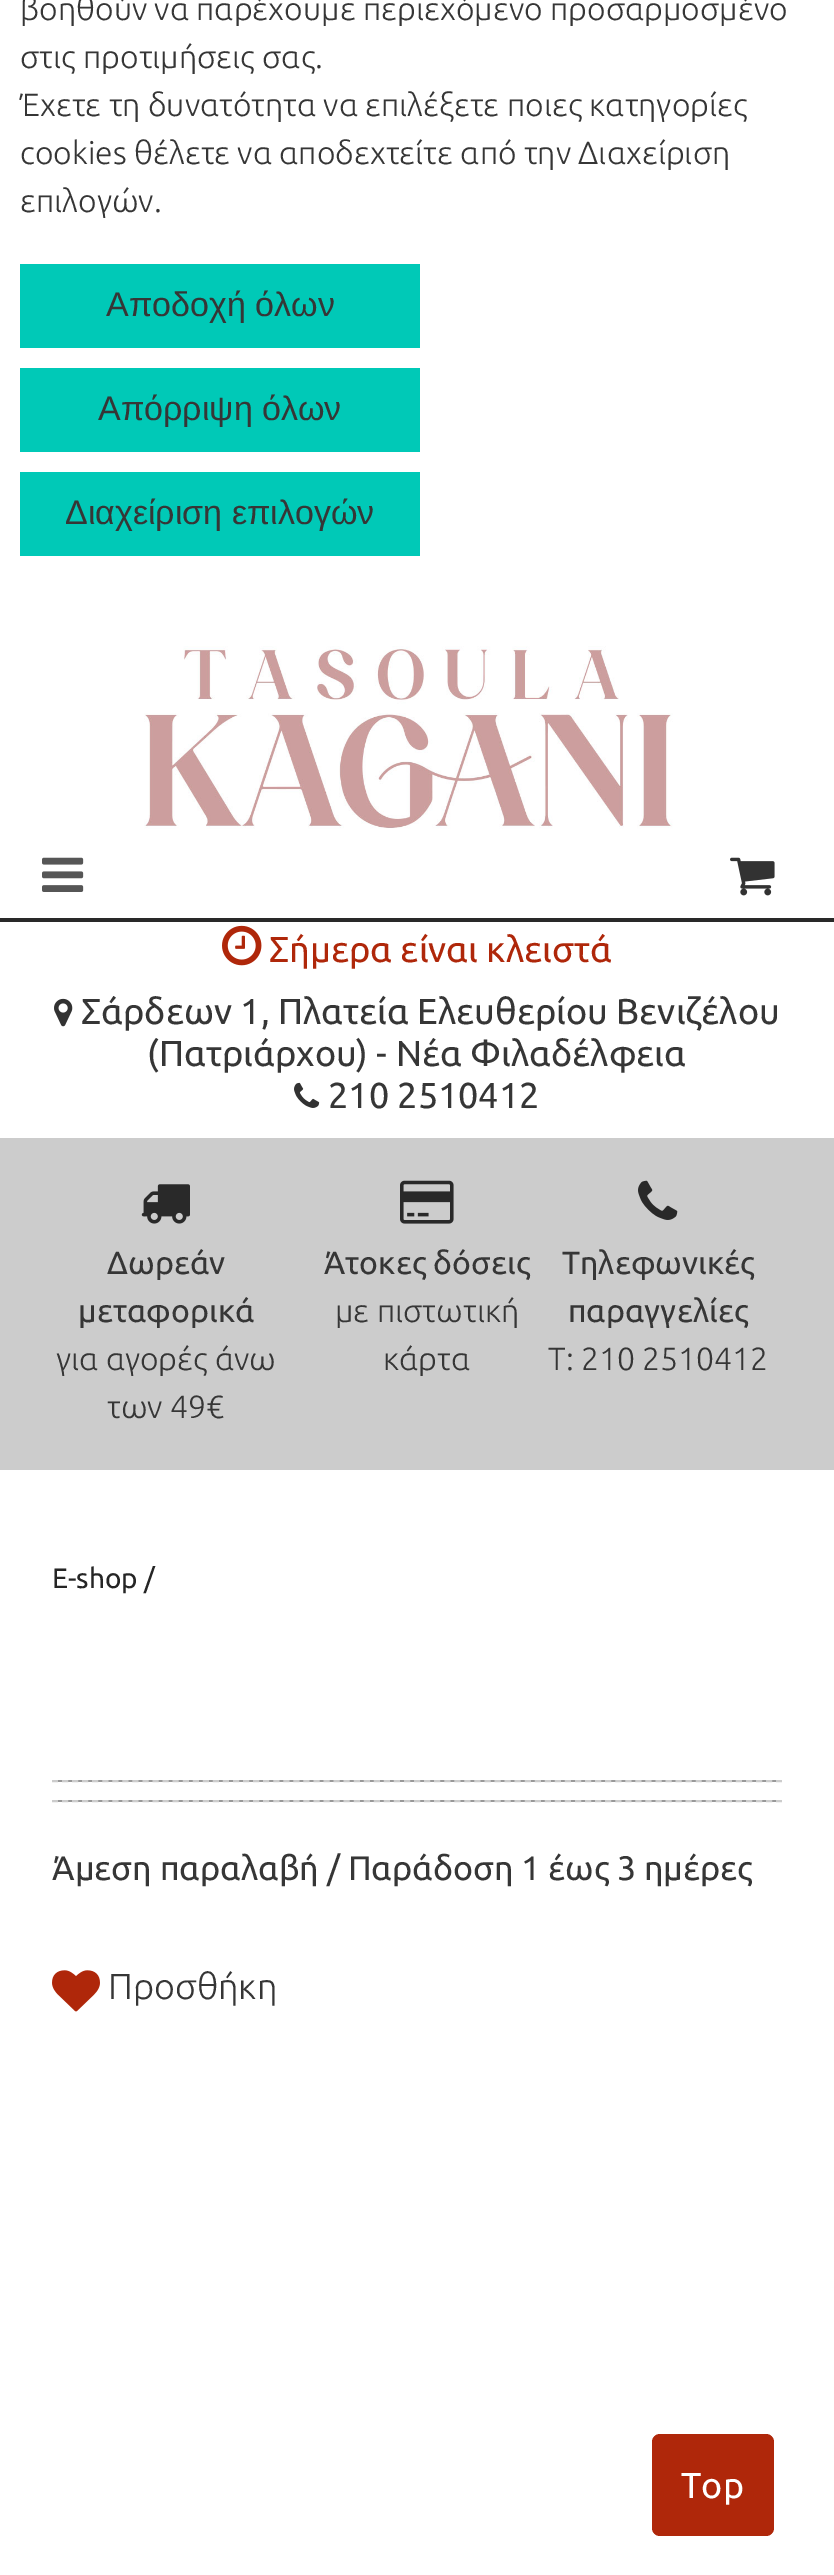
%!PS
<< /PageSize [834 2575] >> setpagedevice
/mt/moveto load def
/li/lineto load def
/fl/fill load def
/st/stroke load def
/lw/setlinewidth load def
/co { dup -16 bitshift 255 div exch dup -8 bitshift 255 and 255 div exch 255 and 255 div setrgbcolor } def
/fn { [ exch dup neg 0 0 3 -1 roll 0 0 ] selectfont } def
/tx { co fn moveto show } def
/bx { co rectfill } def
/rr { 5 dict begin { /r /h /w /y /x } { exch def } forall
  x r add y moveto x w add y 2 copy h add r arct x w add y h add x 1 index r arct
  x y h add x y r arct x y 2 copy exch w add exch r arct closepath end } def
/im { 5 dict begin { /h /w /y /x /name } { exch def } forall
  gsave x y translate w h scale
  w h 8 [w 0 0 h 0 0] name (r) file false 3 colorimage grestore end } def
0 2575 translate 1 -1 scale
4 setmiterlimit
0 0 834 2575 16#FFFFFF bx
20 264 400 84 16#00C9B7 bx
20 368 400 84 16#00C9B7 bx
20 472 400 84 16#00C9B7 bx
0 918 834 4 16#292929 bx
(media/1.raw) 144 646 529 183 im
(media/2.raw) 42 857 42 35 im
(media/3.raw) 730 857 45 39 im
(media/4.raw) 222 925 40 41 im
(media/5.raw) 54 998 19 29 im
(media/6.raw) 294 1082 26 26 im
0 1138 834 332 16#CCCCCC bx
(media/7.raw) 141 1184 49 40 im
(media/8.raw) 400 1180 54 44 im
(media/9.raw) 638 1180 40 40 im
52 1780 730 2 16#999999 bx
16#CCCCCC co
2 lw
[6 4.06] 0 setdash
52 1781 mt 782 1781 li st
52 1800 730 2 16#999999 bx
16#CCCCCC co
52 1801 mt 782 1801 li st
(media/10.raw) 52 1970 48 42 im
16#AF270A co
652 2434 122 102 8 rr fl
(βοηθούν να παρέχουμε περιεχόμενο προσαρμοσμένο) 20 20 /Ubuntu-Light 32 16#363636 tx
(στις προτιμήσεις σας.) 20 68 /Ubuntu-Light 32 16#363636 tx
(Έχετε τη δυνατότητα να επιλέξετε ποιες κατηγορίες) 20 116 /Ubuntu-Light 32 16#363636 tx
(cookies θέλετε να αποδεχτείτε από την Διαχείριση) 20 164 /Ubuntu-Light 32 16#363636 tx
(επιλογών.) 20 212 /Ubuntu-Light 32 16#363636 tx
(Αποδοχή όλων) 106 316 /LiberationSans-Regular 34 16#363636 tx
(Απόρριψη όλων) 98 420 /LiberationSans-Regular 34 16#363636 tx
(Διαχείριση επιλογών) 65 524 /LiberationSans-Regular 34 16#363636 tx
(Σήμερα είναι κλειστά) 269 962 /Ubuntu-Regular 36 16#AF270A tx
(Σάρδεων 1, Πλατεία Ελευθερίου Βενιζέλου) 81 1024 /Ubuntu-Regular 36 16#363636 tx
(\(Πατριάρχου\) - Νέα Φιλαδέλφεια) 147 1066 /Ubuntu-Regular 36 16#363636 tx
(210 2510412) 328 1108 /Ubuntu-Regular 36 16#363636 tx
(Δωρεάν) 107 1274 /Ubuntu-Regular 32 16#363636 tx
(μεταφορικά) 78 1322 /Ubuntu-Regular 32 16#363636 tx
(για αγορές άνω) 56 1370 /Ubuntu-Light 32 16#363636 tx
(των 49€) 107 1418 /Ubuntu-Light 32 16#363636 tx
(Άτοκες δόσεις) 324 1274 /Ubuntu-Regular 32 16#363636 tx
(με πιστωτική) 335 1322 /Ubuntu-Light 32 16#363636 tx
(κάρτα) 383 1370 /Ubuntu-Light 32 16#363636 tx
(Τηλεφωνικές) 562 1274 /Ubuntu-Regular 32 16#363636 tx
(παραγγελίες) 568 1322 /Ubuntu-Regular 32 16#363636 tx
(Τ: 210 2510412) 548 1370 /Ubuntu-Light 32 16#363636 tx
(E-shop /) 52 1588 /Ubuntu-Regular 28 16#252525 tx
(Άμεση παραλαβή / Παράδοση 1 έως 3 ημέρες) 52 1880 /Ubuntu-Regular 34 16#363636 tx
(Προσθήκη) 108 1999 /Ubuntu-Light 36 16#363636 tx
(Top) 681 2498 /Ubuntu-Regular 36 16#FFFFFF tx
showpage
